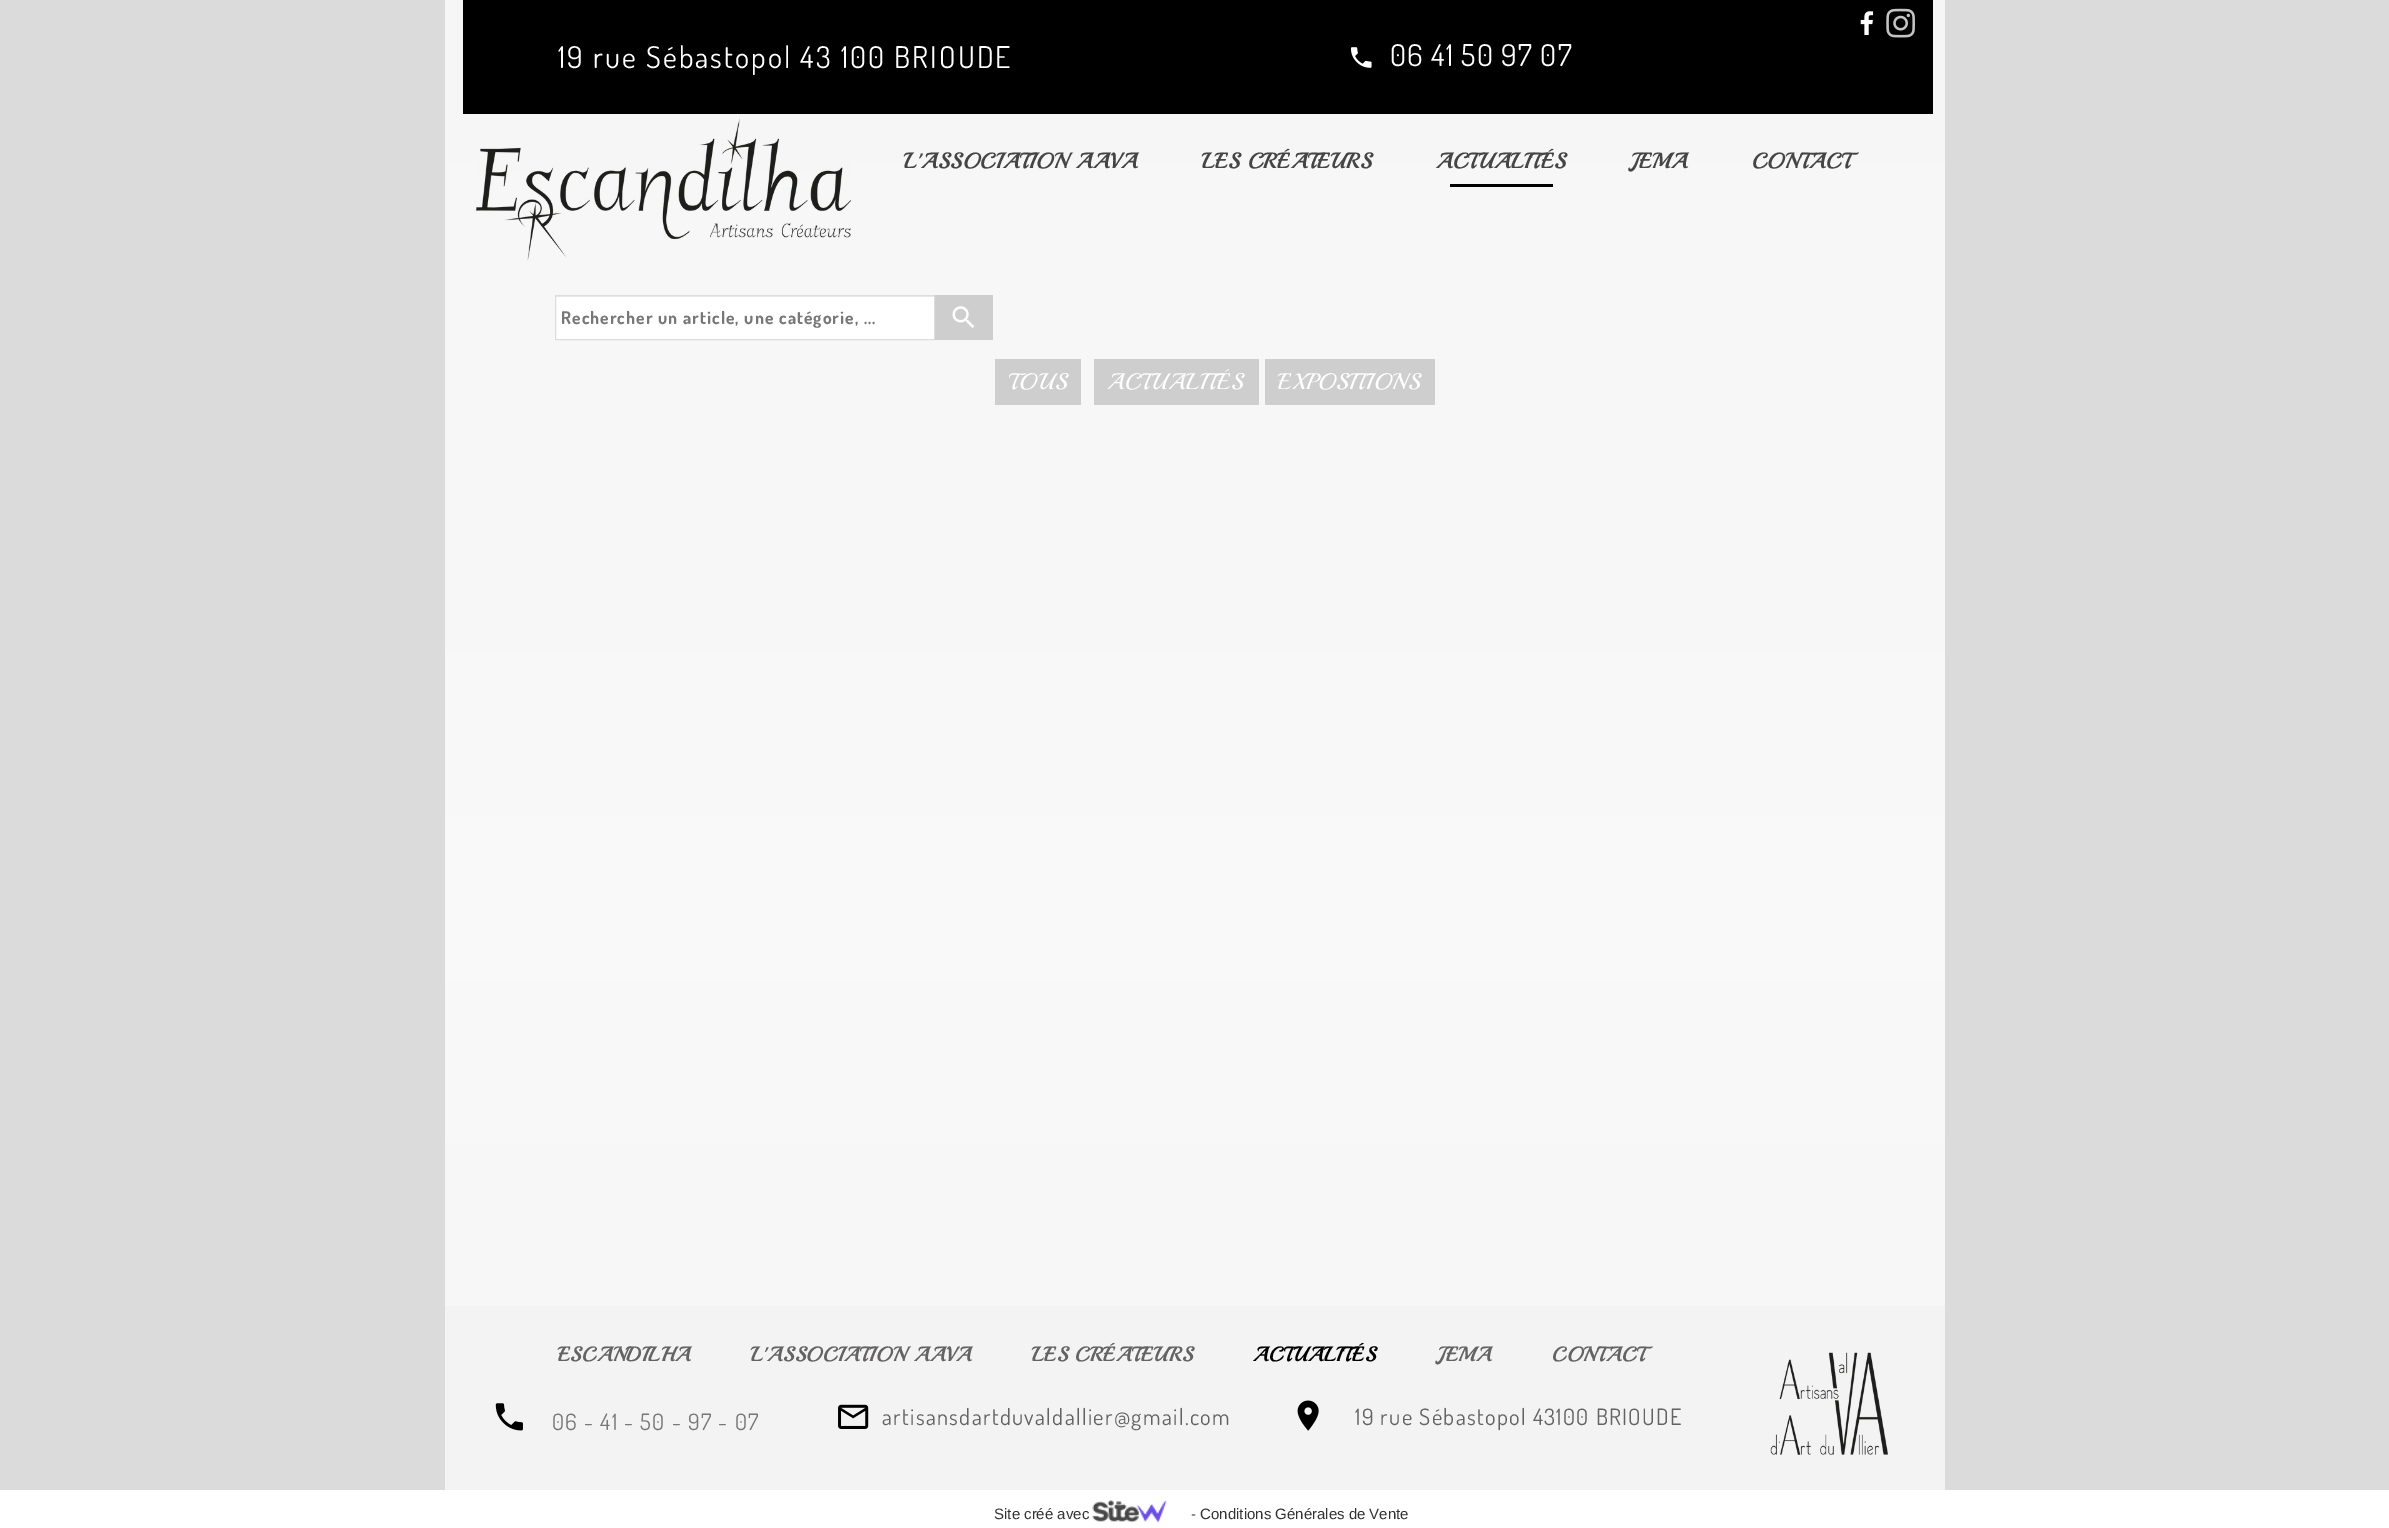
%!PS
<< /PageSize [2389 1528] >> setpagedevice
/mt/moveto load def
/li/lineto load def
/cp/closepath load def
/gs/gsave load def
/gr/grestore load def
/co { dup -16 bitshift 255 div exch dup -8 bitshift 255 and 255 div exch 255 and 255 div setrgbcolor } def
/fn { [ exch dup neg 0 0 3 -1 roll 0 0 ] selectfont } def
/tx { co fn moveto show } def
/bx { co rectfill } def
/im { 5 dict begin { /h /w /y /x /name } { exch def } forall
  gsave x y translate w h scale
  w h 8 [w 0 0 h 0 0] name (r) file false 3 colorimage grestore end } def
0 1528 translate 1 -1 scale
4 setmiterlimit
0 0 2389 1528 16#DBDBDB bx
gs 445 0 mt 1945 0 li 1945 1306 li 445 1306 li cp clip newpath
<< /ShadingType 2 /ColorSpace /DeviceRGB /Coords [1195 0 1195 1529] /Extend [true true] /Function << /FunctionType 3 /Domain [0 1] /Functions [<< /FunctionType 2 /Domain [0 1] /C0 [.965 .965 .965] /C1 [.965 .965 .965] /N 1 >> << /FunctionType 2 /Domain [0 1] /C0 [.965 .965 .965] /C1 [.976 .976 .976] /N 1 >> << /FunctionType 2 /Domain [0 1] /C0 [.976 .976 .976] /C1 [.965 .965 .965] /N 1 >>] /Bounds [.01 .63] /Encode [0 1 0 1 0 1] >> >> shfill gr
463 0 1470 114 16#000000 bx
(media/1.raw) 1860 11 14 24 im
(media/2.raw) 1886 8 29 30 im
(media/3.raw) 1350 47 22 21 im
(media/4.raw) 476 118 376 143 im
1450 184 103 3 16#000000 bx
556 297 378 42 16#FFFFFF bx
556 296 378 1 16#ECECEC bx
16#DDDDDD co
555.5 295.5 379 44 rectstroke
935 295 58 45 16#CECECE bx
(media/5.raw) 952 306 23 22 im
995 359 86 46 16#CECECE bx
1094 359 165 46 16#CECECE bx
1265 359 170 46 16#CECECE bx
445 1306 1500 184 16#F3F3F3 bx
(media/6.raw) 1770 1352 118 103 im
(media/7.raw) 495 1403 28 28 im
(media/8.raw) 838 1404 31 25 im
(media/9.raw) 1297 1400 22 31 im
0 1490 2389 38 16#FFFFFF bx
(media/10.raw) 1092 1500 75 23 im
/Dosis-Regular 30 fn
558 68 mt 2.1 0 (19 rue Sébastopol 43 100 BRIOUDE) ashow
1390 66 mt 1.25 0 (06 41 50 97 07) ashow
/Playball-Bold 21.25 fn
16#454545 co
904 168 mt 1.05 0 (L'ASSOCIATION AAVA) ashow
1202 168 mt 1.05 0 (LES CRÉATEURS) ashow
1436 168 mt 1.05 0 (ACTUALITÉS) ashow
1630 168 mt 1.05 0 (JEMA) ashow
1752 168 mt 1.05 0 (CONTACT) ashow
/Dosis-Bold 17.5 fn
16#777777 co
561 324 mt 1.05 0 (Rechercher un article, une catégorie, ...) ashow
/Playball-Regular 22.5 fn
16#FFFFFF co
1009 389 mt 1.05 0 (TOUS) ashow
1107 389 mt 1.05 0 (ACTUALITÉS) ashow
1278 389 mt 1.05 0 (EXPOSITIONS) ashow
/Playball-Bold 20 fn
16#646262 co
558 1361 mt 1.05 0 (ESCANDILHA) ashow
751 1361 mt 1.05 0 (L'ASSOCIATION AAVA) ashow
1032 1361 mt 1.05 0 (LES CRÉATEURS) ashow
16#000000 co
1253 1361 mt 1.05 0 (ACTUALITÉS) ashow
16#646262 co
1437 1361 mt 1.05 0 (JEMA) ashow
1552 1361 mt 1.05 0 (CONTACT) ashow
/Dosis-Regular 22.5 fn
16#777777 co
552 1430 mt 1.35 0 (06 - 41 - 50 - 97 - 07) ashow
16#646262 co
882 1425 mt 1.35 0 (artisansdartduvaldallier@gmail.com) ashow
1355 1425 mt 1.35 0 (19 rue Sébastopol 43100 BRIOUDE) ashow
(Site créé avec) 994 1519 /LiberationSans-Regular 15 16#333333 tx
(- Conditions Générales de Vente) 1191 1519 /LiberationSans-Regular 15 16#333333 tx
showpage
